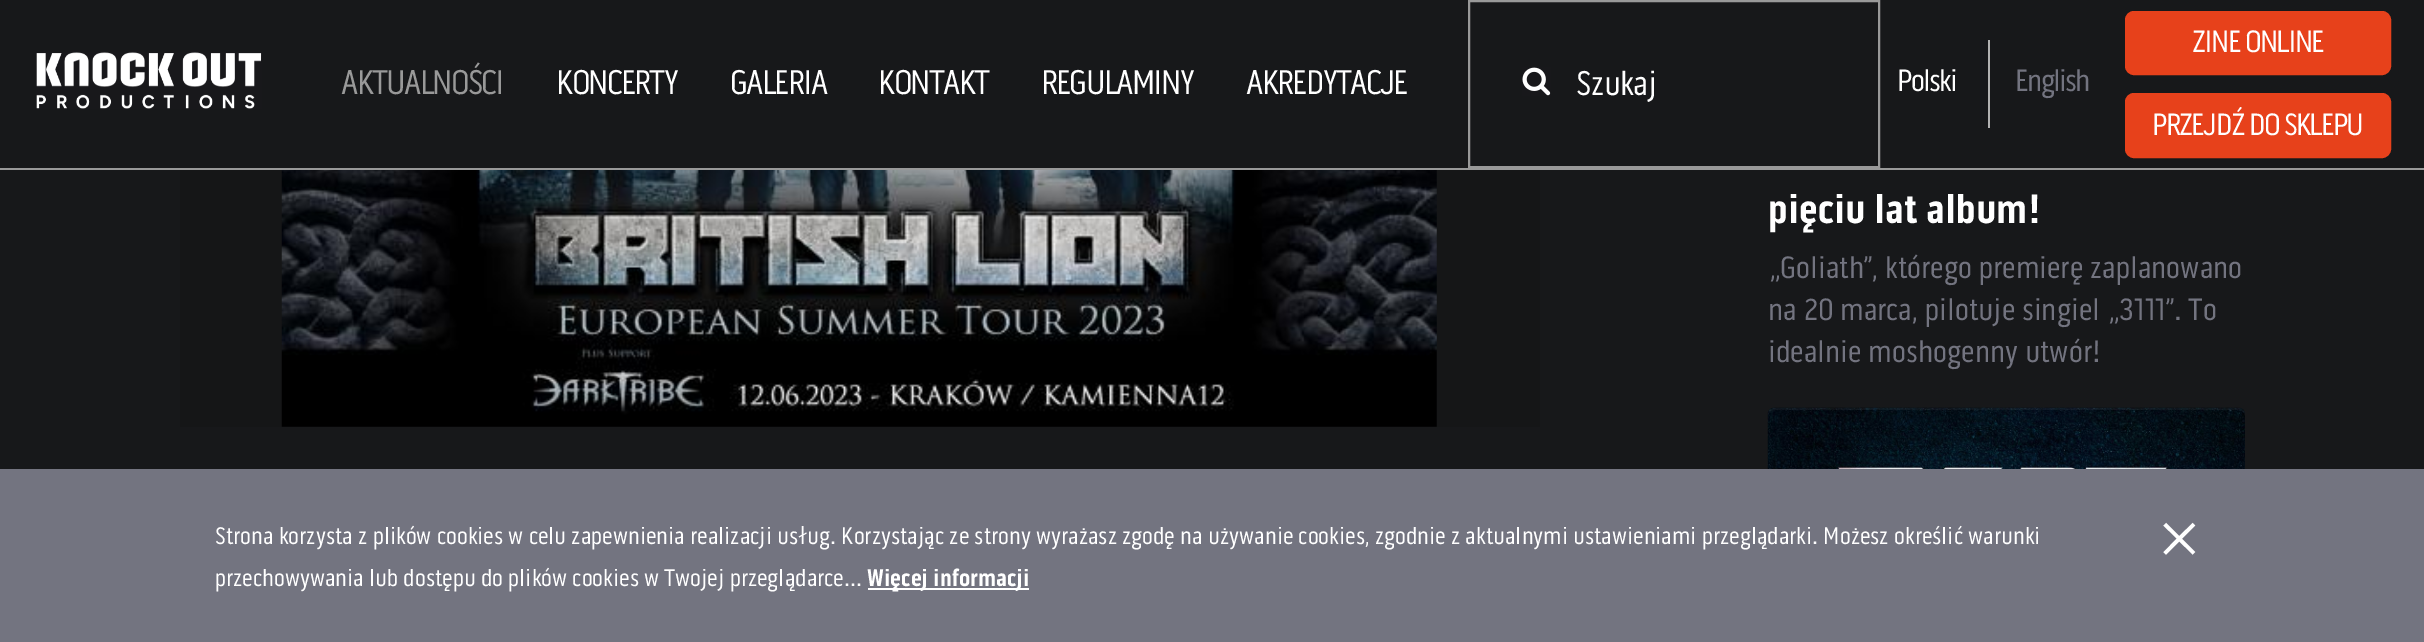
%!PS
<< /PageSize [2424 642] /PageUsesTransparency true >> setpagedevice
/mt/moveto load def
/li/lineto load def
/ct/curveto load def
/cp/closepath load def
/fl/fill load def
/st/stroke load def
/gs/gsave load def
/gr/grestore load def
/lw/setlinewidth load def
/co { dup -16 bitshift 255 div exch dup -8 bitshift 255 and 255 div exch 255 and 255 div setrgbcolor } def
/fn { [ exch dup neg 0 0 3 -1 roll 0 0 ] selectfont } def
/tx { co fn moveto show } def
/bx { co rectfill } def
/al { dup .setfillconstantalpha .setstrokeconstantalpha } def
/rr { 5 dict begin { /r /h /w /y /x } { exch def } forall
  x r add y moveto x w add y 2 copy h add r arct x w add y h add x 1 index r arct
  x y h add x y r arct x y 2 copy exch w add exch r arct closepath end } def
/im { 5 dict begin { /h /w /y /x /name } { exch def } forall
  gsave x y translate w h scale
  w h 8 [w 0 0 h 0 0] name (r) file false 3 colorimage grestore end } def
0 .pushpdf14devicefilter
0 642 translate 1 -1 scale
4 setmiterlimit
0 0 2424 642 16#17181A bx
0 168 2424 2 16#999999 bx
(media/1.raw) 36 52 226 57 im
2 lw
1469 1 410 166 rectstroke
(media/2.raw) 1522 67 29 29 im
1988 40 2 88 16#B2B2B2 bx
16#E7411B co
2126 12 264 62 8 rr gs fl gr
st
2126 94 264 63 8 rr gs fl gr
st
180 170 1360 257 16#151617 bx
(media/3.raw) 281 170 1156 257 im
(media/4.raw) 1767 407 478 62 im
0.05 al
16#FFFFFF co
1774 410 mt 2238 410 li 2242 410 2245 413 2245 416 ct 2245 415 li 2245 411 2242 408 2238 408 ct 1775 408 li 1771 408 1768 411 1768 415 ct 1768 416 li 1768 413 1771 410 1774 410 ct cp fl
1 al
0 469 2424 173 16#737480 bx
868 588 161 2 16#FFFFFF bx
/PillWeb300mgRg-Regular 35 fn
16#999999 co
341 94 mt -1.75 0 (AKTUALNOŚCI) ashow
16#FFFFFF co
556 94 mt -1.75 0 (KONCERTY) ashow
730 94 mt -1.75 0 (GALERIA) ashow
878 94 mt -1.75 0 (KONTAKT) ashow
1041 94 mt -1.75 0 (REGULAMINY) ashow
1246 94 mt -1.75 0 (AKREDYTACJE) ashow
1576 95 mt -.5 0 (Szukaj) ashow
/PillWeb300mgRg-Regular 31.5 fn
1897 91 mt -1.75 0 (Polski) ashow
16#737480 co
2015 91 mt -1.75 0 (English) ashow
16#FFFFFF co
2192 52 mt -1.75 0 (ZINE ONLINE) ashow
2152 135 mt -1.75 0 (PRZEJDŹ DO SKLEPU) ashow
(pięciu lat album!) 1768 223 /PillWeb300mgRg-Bold 42 16#FFFFFF tx
(„Goliath”, którego premierę zaplanowano) 1768 278 /PillWeb300mgRg-Regular 31.5 16#737480 tx
(na 20 marca, pilotuje singiel „3111”. To) 1768 320 /PillWeb300mgRg-Regular 31.5 16#737480 tx
(idealnie moshogenny utwór!) 1768 362 /PillWeb300mgRg-Regular 31.5 16#737480 tx
(Strona korzysta z plików cookies w celu zapewnienia realizacji usług. Korzystając ze strony wyrażasz zgodę na używanie cookies, zgodnie z aktualnymi ustawieniami przeglądarki. Możesz określić warunki) 215 544 /PillWeb300mgRg-Regular 24.5 16#FFFFFF tx
(przechowywania lub dostępu do plików cookies w Twojej przeglądarce...) 215 586 /PillWeb300mgRg-Regular 24.5 16#FFFFFF tx
(Więcej informacji) 867 586 /PillWeb300mgRg-Bold 24.5 16#FFFFFF tx
(×) 2157 565 /LiberationSerif-Regular 79 16#FFFFFF tx
.poppdf14devicefilter showpage
